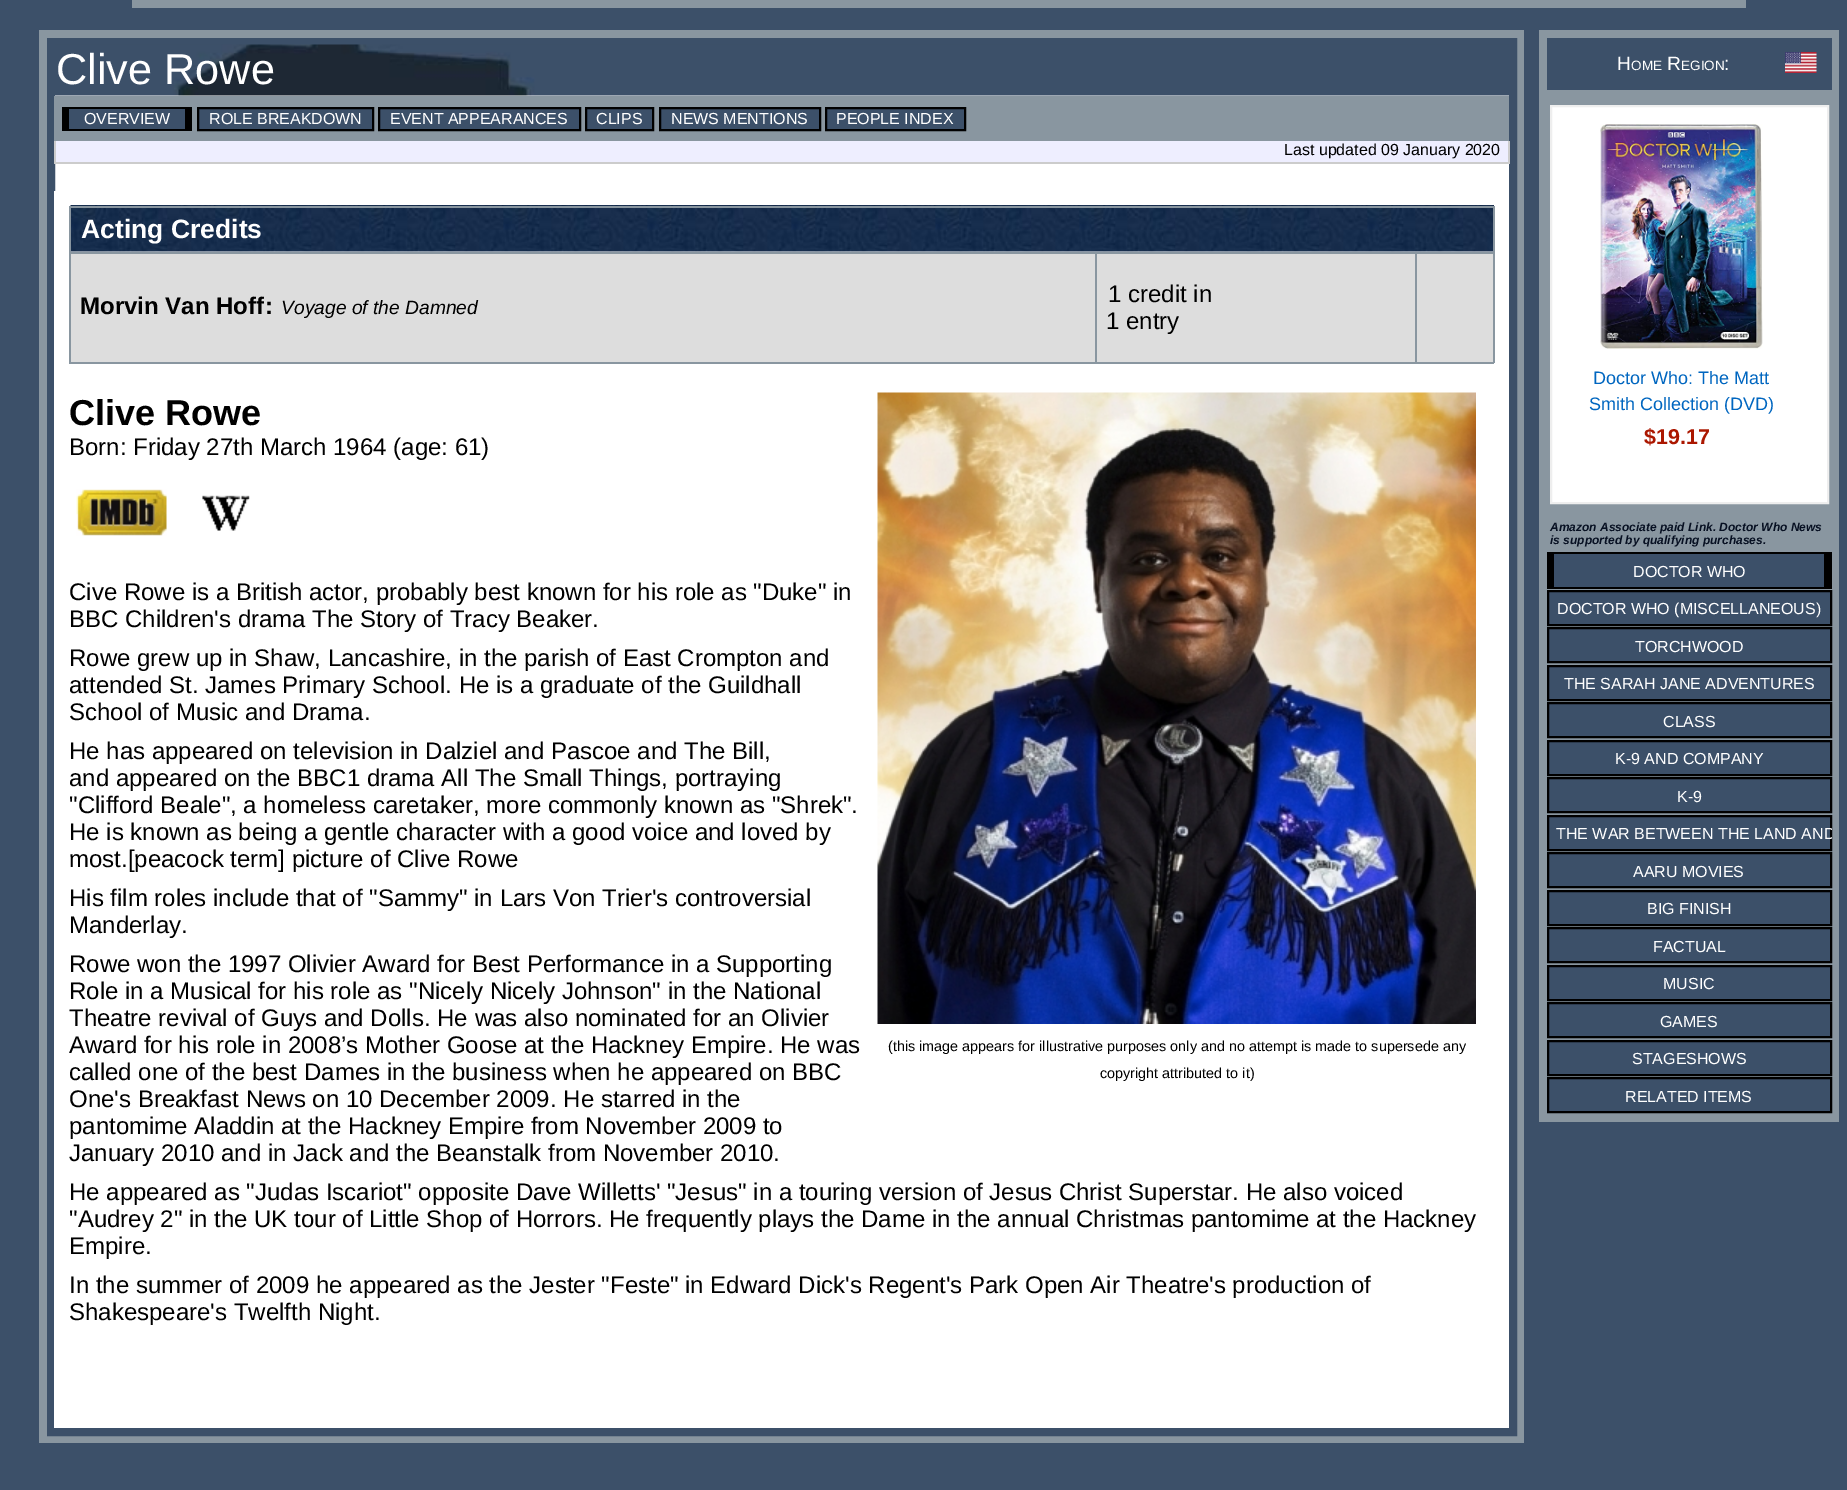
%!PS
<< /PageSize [1847 1490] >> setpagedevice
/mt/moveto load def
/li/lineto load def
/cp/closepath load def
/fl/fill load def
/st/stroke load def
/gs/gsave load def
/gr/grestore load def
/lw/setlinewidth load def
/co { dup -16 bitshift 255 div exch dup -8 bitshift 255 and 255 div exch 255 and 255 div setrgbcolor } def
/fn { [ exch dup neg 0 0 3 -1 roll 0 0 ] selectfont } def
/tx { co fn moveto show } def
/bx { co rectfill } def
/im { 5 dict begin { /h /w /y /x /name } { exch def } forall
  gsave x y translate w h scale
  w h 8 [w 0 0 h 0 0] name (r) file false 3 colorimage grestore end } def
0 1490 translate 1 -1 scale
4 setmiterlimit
0 0 1847 1490 16#3C5069 bx
132 0 1614 8 16#8996A0 bx
39 30 1485 1413 16#8996A0 bx
55 95 1454 96 16#FFFFFF bx
16#3C5069 co
8 lw
51 42 1462 1390 rectstroke
(media/1.raw) 55 44 1454 52 im
54 96 1455 45 16#8996A0 bx
69 109 116 20 16#3C5069 bx
62 107 130 2 16#000000 bx
185 107 7 24 16#000000 bx
62 129 130 2 16#000000 bx
62 107 7 24 16#000000 bx
16#3C5069 co
198 108 mt 373 108 li 373 130 li 198 130 li cp gs fl gr
16#000000 co
2 lw
st
16#3C5069 co
379 108 mt 580 108 li 580 130 li 379 130 li cp gs fl gr
16#000000 co
st
16#3C5069 co
586 108 mt 653 108 li 653 130 li 586 130 li cp gs fl gr
16#000000 co
st
16#3C5069 co
660 108 mt 820 108 li 820 130 li 660 130 li cp gs fl gr
16#000000 co
st
16#3C5069 co
826 108 mt 965 108 li 965 130 li 826 130 li cp gs fl gr
16#000000 co
st
56 141 1452 21 16#EEEEFF bx
1508 141 2 23 16#CCCCCC bx
54 162 1455 2 16#CCCCCC bx
54 141 2 23 16#CCCCCC bx
54 191 1455 1237 16#FFFFFF bx
(media/2.raw) 70 205 1424 47 im
69 206 1425 2 16#8996A0 bx
1415 252 79 2 16#8996A0 bx
1493 252 2 111 16#8996A0 bx
1493 206 2 48 16#8996A0 bx
1415 362 79 2 16#8996A0 bx
1415 252 2 111 16#8996A0 bx
1095 252 321 2 16#8996A0 bx
1095 362 321 2 16#8996A0 bx
1095 252 2 111 16#8996A0 bx
69 252 1028 2 16#8996A0 bx
69 362 1028 2 16#8996A0 bx
69 252 2 111 16#8996A0 bx
69 206 2 48 16#8996A0 bx
71 254 1024 108 16#DDDDDD bx
1097 254 318 108 16#DDDDDD bx
1417 254 76 108 16#DDDDDD bx
(media/3.raw) 76 489 91 47 im
(media/4.raw) 202 495 48 36 im
(media/5.raw) 877 392 599 632 im
1539 30 300 1092 16#8996A0 bx
1547 38 285 52 16#3C5069 bx
(media/6.raw) 1785 52 32 21 im
16#FFFFFF co
1551 106 mt 1828 106 li 1828 503 li 1551 503 li cp gs fl gr
16#EEEEEE co
st
(media/7.raw) 1600 124 163 225 im
1554 554 270 33 16#3C5069 bx
1547 552 285 2 16#000000 bx
1824 552 8 36 16#000000 bx
1547 587 285 2 16#000000 bx
1547 552 7 36 16#000000 bx
16#3C5069 co
1548 591 mt 1831 591 li 1831 625 li 1548 625 li cp gs fl gr
16#000000 co
st
16#3C5069 co
1548 628 mt 1831 628 li 1831 662 li 1548 662 li cp gs fl gr
16#000000 co
st
16#3C5069 co
1548 666 mt 1831 666 li 1831 700 li 1548 700 li cp gs fl gr
16#000000 co
st
16#3C5069 co
1548 703 mt 1831 703 li 1831 737 li 1548 737 li cp gs fl gr
16#000000 co
st
16#3C5069 co
1548 741 mt 1831 741 li 1831 775 li 1548 775 li cp gs fl gr
16#000000 co
st
16#3C5069 co
1548 778 mt 1831 778 li 1831 812 li 1548 812 li cp gs fl gr
16#000000 co
st
16#3C5069 co
1548 816 mt 1831 816 li 1831 850 li 1548 850 li cp gs fl gr
16#000000 co
st
16#3C5069 co
1548 853 mt 1831 853 li 1831 887 li 1548 887 li cp gs fl gr
16#000000 co
st
16#3C5069 co
1548 891 mt 1831 891 li 1831 925 li 1548 925 li cp gs fl gr
16#000000 co
st
16#3C5069 co
1548 928 mt 1831 928 li 1831 962 li 1548 962 li cp gs fl gr
16#000000 co
st
16#3C5069 co
1548 966 mt 1831 966 li 1831 1000 li 1548 1000 li cp gs fl gr
16#000000 co
st
16#3C5069 co
1548 1003 mt 1831 1003 li 1831 1037 li 1548 1037 li cp gs fl gr
16#000000 co
st
16#3C5069 co
1548 1041 mt 1831 1041 li 1831 1075 li 1548 1075 li cp gs fl gr
16#000000 co
st
16#3C5069 co
1548 1078 mt 1831 1078 li 1831 1112 li 1548 1112 li cp gs fl gr
16#000000 co
st
(Clive Rowe) 56 84 /LiberationSans-Regular 43.25 16#FFFFFF tx
(OVERVIEW) 84 124 /LiberationSans-Regular 16 16#FFFFFF tx
(ROLE BREAKDOWN) 209 124 /LiberationSans-Regular 16 16#FFFFFF tx
(EVENT APPEARANCES) 390 124 /LiberationSans-Regular 16 16#FFFFFF tx
(CLIPS) 596 124 /LiberationSans-Regular 16 16#FFFFFF tx
(NEWS MENTIONS) 671 124 /LiberationSans-Regular 16 16#FFFFFF tx
(PEOPLE INDEX) 836 124 /LiberationSans-Regular 16 16#FFFFFF tx
(Last updated 09 January 2020) 1284 155 /LiberationSans-Regular 16 16#000000 tx
(Acting Credits) 81 238 /LiberationSans-Bold 26.5 16#FFFFFF tx
(Morvin Van Hoff) 80 314 /LiberationSans-Bold 24 16#000000 tx
(:) 265 314 /LiberationSans-Bold 24 16#000000 tx
(Voyage of the Damned) 281 314 /LiberationSans-Italic 19.25 16#000000 tx
(1 credit in) 1108 302 /LiberationSans-Regular 24 16#000000 tx
(1 entry) 1106 329 /LiberationSans-Regular 24 16#000000 tx
(Clive Rowe) 69 425 /LiberationSans-Bold 36 16#000000 tx
(Born: Friday 27th March 1964 \(age: 61\)) 69 455 /LiberationSans-Regular 24 16#000000 tx
(Cive Rowe is a British actor, probably best known for his role as "Duke" in) 69 600 /LiberationSans-Regular 24 16#000000 tx
(BBC Children's drama The Story of Tracy Beaker.) 69 627 /LiberationSans-Regular 24 16#000000 tx
(Rowe grew up in Shaw, Lancashire, in the parish of East Crompton and) 69 666 /LiberationSans-Regular 24 16#000000 tx
(attended St. James Primary School. He is a graduate of the Guildhall) 69 693 /LiberationSans-Regular 24 16#000000 tx
(School of Music and Drama.) 69 720 /LiberationSans-Regular 24 16#000000 tx
(He has appeared on television in Dalziel and Pascoe and The Bill,) 69 759 /LiberationSans-Regular 24 16#000000 tx
(and appeared on the BBC1 drama All The Small Things, portraying) 69 786 /LiberationSans-Regular 24 16#000000 tx
("Clifford Beale", a homeless caretaker, more commonly known as "Shrek".) 69 813 /LiberationSans-Regular 24 16#000000 tx
(He is known as being a gentle character with a good voice and loved by) 69 840 /LiberationSans-Regular 24 16#000000 tx
(most.[peacock term] picture of Clive Rowe) 69 867 /LiberationSans-Regular 24 16#000000 tx
(His film roles include that of "Sammy" in Lars Von Trier's controversial) 69 906 /LiberationSans-Regular 24 16#000000 tx
(Manderlay.) 69 933 /LiberationSans-Regular 24 16#000000 tx
(Rowe won the 1997 Olivier Award for Best Performance in a Supporting) 69 972 /LiberationSans-Regular 24 16#000000 tx
(Role in a Musical for his role as "Nicely Nicely Johnson" in the National) 69 999 /LiberationSans-Regular 24 16#000000 tx
(Theatre revival of Guys and Dolls. He was also nominated for an Olivier) 69 1026 /LiberationSans-Regular 24 16#000000 tx
(Award for his role in 2008’s Mother Goose at the Hackney Empire. He was) 69 1053 /LiberationSans-Regular 24 16#000000 tx
(called one of the best Dames in the business when he appeared on BBC) 69 1080 /LiberationSans-Regular 24 16#000000 tx
(One's Breakfast News on 10 December 2009. He starred in the) 69 1107 /LiberationSans-Regular 24 16#000000 tx
(pantomime Aladdin at the Hackney Empire from November 2009 to) 69 1134 /LiberationSans-Regular 24 16#000000 tx
(January 2010 and in Jack and the Beanstalk from November 2010.) 69 1161 /LiberationSans-Regular 24 16#000000 tx
(He appeared as "Judas Iscariot" opposite Dave Willetts' "Jesus" in a touring version of Jesus Christ Superstar. He also voiced) 69 1200 /LiberationSans-Regular 24 16#000000 tx
("Audrey 2" in the UK tour of Little Shop of Horrors. He frequently plays the Dame in the annual Christmas pantomime at the Hackney) 69 1227 /LiberationSans-Regular 24 16#000000 tx
(Empire.) 69 1254 /LiberationSans-Regular 24 16#000000 tx
(In the summer of 2009 he appeared as the Jester "Feste" in Edward Dick's Regent's Park Open Air Theatre's production of) 69 1293 /LiberationSans-Regular 24 16#000000 tx
(Shakespeare's Twelfth Night.) 69 1320 /LiberationSans-Regular 24 16#000000 tx
(\(this image appears for illustrative purposes only and no attempt is made to supersede any) 888 1051 /LiberationSans-Regular 14.4 16#000000 tx
(copyright attributed to it\)) 1100 1078 /LiberationSans-Regular 14.4 16#000000 tx
(H) 1617 70 /LiberationSans-Regular 19.25 16#FFFFFF tx
(OME) 1631 70 /LiberationSans-Regular 13.5 16#FFFFFF tx
(R) 1667 70 /LiberationSans-Regular 19.25 16#FFFFFF tx
(EGION) 1681 70 /LiberationSans-Regular 13.5 16#FFFFFF tx
(:) 1724 70 /LiberationSans-Regular 19.25 16#FFFFFF tx
(Doctor Who: The Matt) 1593 384 /LiberationSans-Regular 18 16#0066C0 tx
(Smith Collection \(DVD\)) 1589 410 /LiberationSans-Regular 18 16#0066C0 tx
($19.17) 1644 444 /LiberationSans-Bold 21.5 16#AB1700 tx
(Amazon Associate paid Link. Doctor Who News) 1550 531 /LiberationSans-BoldItalic 12 16#071022 tx
(is supported by qualifying purchases.) 1550 544 /LiberationSans-BoldItalic 12 16#071022 tx
(DOCTOR WHO) 1633 577 /LiberationSans-Regular 16 16#FFFFFF tx
(DOCTOR WHO \(MISCELLANEOUS\)) 1557 614 /LiberationSans-Regular 16 16#FFFFFF tx
(TORCHWOOD) 1635 652 /LiberationSans-Regular 16 16#FFFFFF tx
(THE SARAH JANE ADVENTURES) 1564 689 /LiberationSans-Regular 16 16#FFFFFF tx
(CLASS) 1663 727 /LiberationSans-Regular 16 16#FFFFFF tx
(K-9 AND COMPANY) 1615 764 /LiberationSans-Regular 16 16#FFFFFF tx
(K-9) 1677 802 /LiberationSans-Regular 16 16#FFFFFF tx
gs
1547 551 285 564 rectclip
(THE WAR BETWEEN THE LAND AND) 1556 839 /LiberationSans-Regular 16 16#FFFFFF tx
gr
(AARU MOVIES) 1633 877 /LiberationSans-Regular 16 16#FFFFFF tx
(BIG FINISH) 1647 914 /LiberationSans-Regular 16 16#FFFFFF tx
(FACTUAL) 1653 952 /LiberationSans-Regular 16 16#FFFFFF tx
(MUSIC) 1663 989 /LiberationSans-Regular 16 16#FFFFFF tx
(GAMES) 1660 1027 /LiberationSans-Regular 16 16#FFFFFF tx
(STAGESHOWS) 1632 1064 /LiberationSans-Regular 16 16#FFFFFF tx
(RELATED ITEMS) 1625 1102 /LiberationSans-Regular 16 16#FFFFFF tx
showpage
